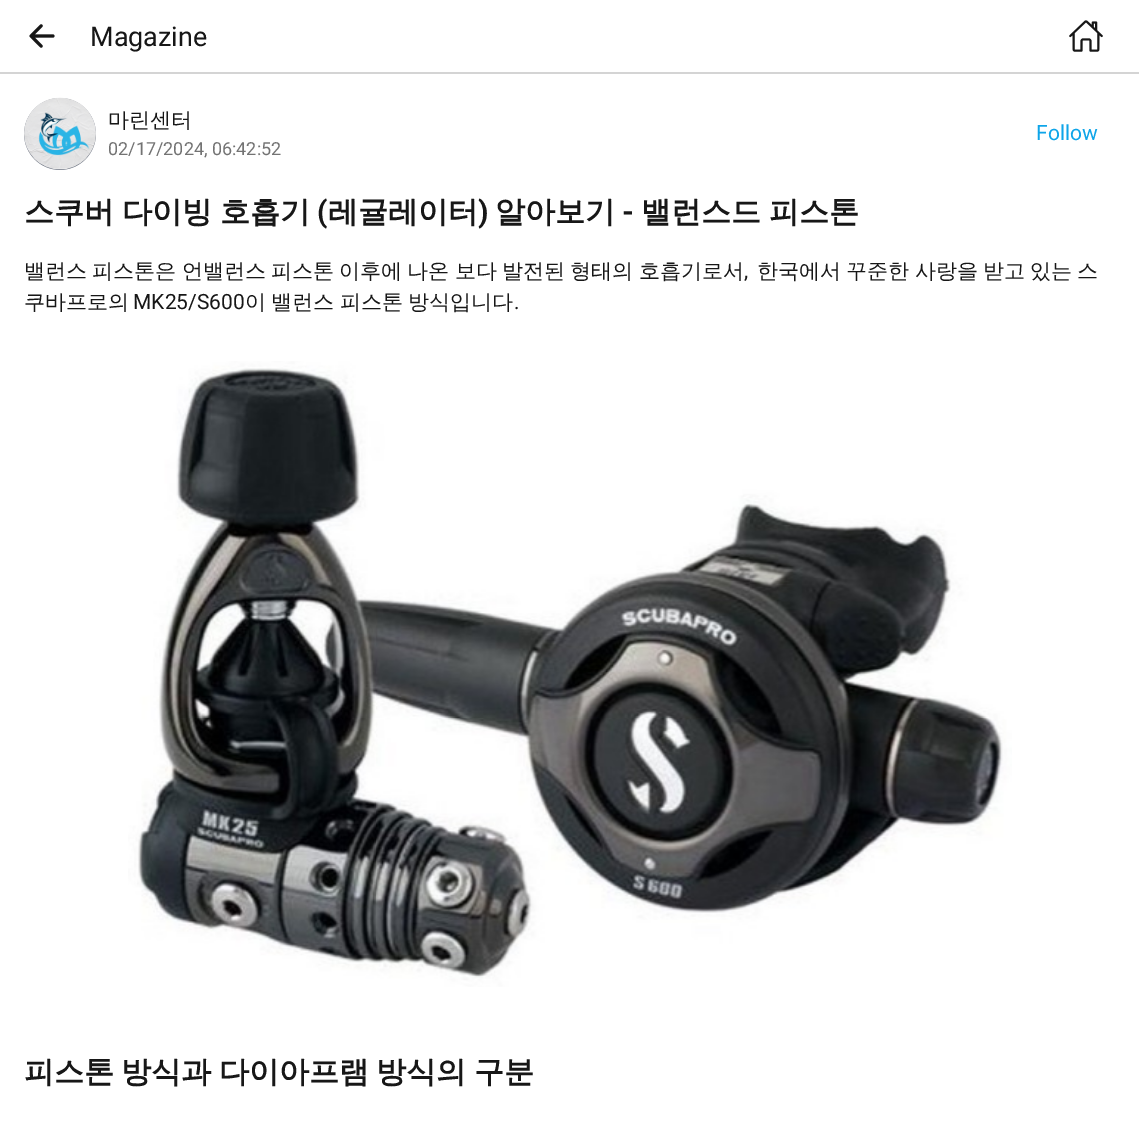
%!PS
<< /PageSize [1139 1131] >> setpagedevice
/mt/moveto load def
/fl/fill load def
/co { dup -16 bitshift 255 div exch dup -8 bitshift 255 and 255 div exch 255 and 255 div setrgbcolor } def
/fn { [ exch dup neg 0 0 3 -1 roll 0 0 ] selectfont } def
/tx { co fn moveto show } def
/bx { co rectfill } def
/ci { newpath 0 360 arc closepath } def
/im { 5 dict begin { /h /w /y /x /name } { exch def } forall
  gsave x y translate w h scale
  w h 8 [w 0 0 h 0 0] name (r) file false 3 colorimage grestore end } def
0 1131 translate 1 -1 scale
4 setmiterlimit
0 0 1139 1131 16#FFFFFF bx
(media/1.raw) 29 24 26 24 im
(media/2.raw) 1069 20 34 32 im
0 72 1139 2 16#D4D4D4 bx
16#6B7280 co
60 134 36 ci fl
(media/3.raw) 24 97 72 73 im
(media/4.raw) 128 361 884 626 im
(Magazine) 90 46 /Roboto-Regular 27 16#171717 tx
(마린센터) 108 127 /WenQuanYiZenHei-Medium 21 16#171717 tx
(02/17/2024, 06:42:52) 108 155 /Roboto-Regular 18 16#737373 tx
(Follow) 1036 140 /Roboto-Regular 21 16#0EA5E9 tx
/WenQuanYiZenHei-Bold 30 fn
16#171717 co
24 222 mt -1 0 32 (스쿠버 다이빙 호흡기) widthshow
(\() 317 222 /Roboto-Bold 30 16#171717 tx
(레귤레이터) 328 222 /WenQuanYiZenHei-Bold 30 16#171717 tx
(\)) 478 222 /Roboto-Bold 30 16#171717 tx
(알아보기) 495 222 /WenQuanYiZenHei-Bold 30 16#171717 tx
(-) 622 222 /Roboto-Bold 30 16#171717 tx
/WenQuanYiZenHei-Bold 30 fn
641 222 mt -1 0 32 (밸런스드 피스톤) widthshow
/WenQuanYiZenHei-Medium 21 fn
24 278 mt -1 0 32 (밸런스 피스톤은 언밸런스 피스톤 이후에 나온 보다 발전된 형태의 호흡기로서) widthshow
(,) 744 278 /Roboto-Regular 21 16#171717 tx
/WenQuanYiZenHei-Medium 21 fn
757 278 mt -1 0 32 (한국에서 꾸준한 사랑을 받고 있는 스) widthshow
(쿠바프로의) 24 309 /WenQuanYiZenHei-Medium 21 16#171717 tx
(MK25/S600) 133 309 /Roboto-Regular 21 16#171717 tx
/WenQuanYiZenHei-Medium 21 fn
245 309 mt -1 0 32 (이 밸런스 피스톤 방식입니다) widthshow
(.) 514 309 /Roboto-Regular 21 16#171717 tx
/WenQuanYiZenHei-Bold 30 fn
24 1082 mt -1.5 0 32 (피스톤 방식과 다이아프램 방식의 구분) widthshow
showpage
